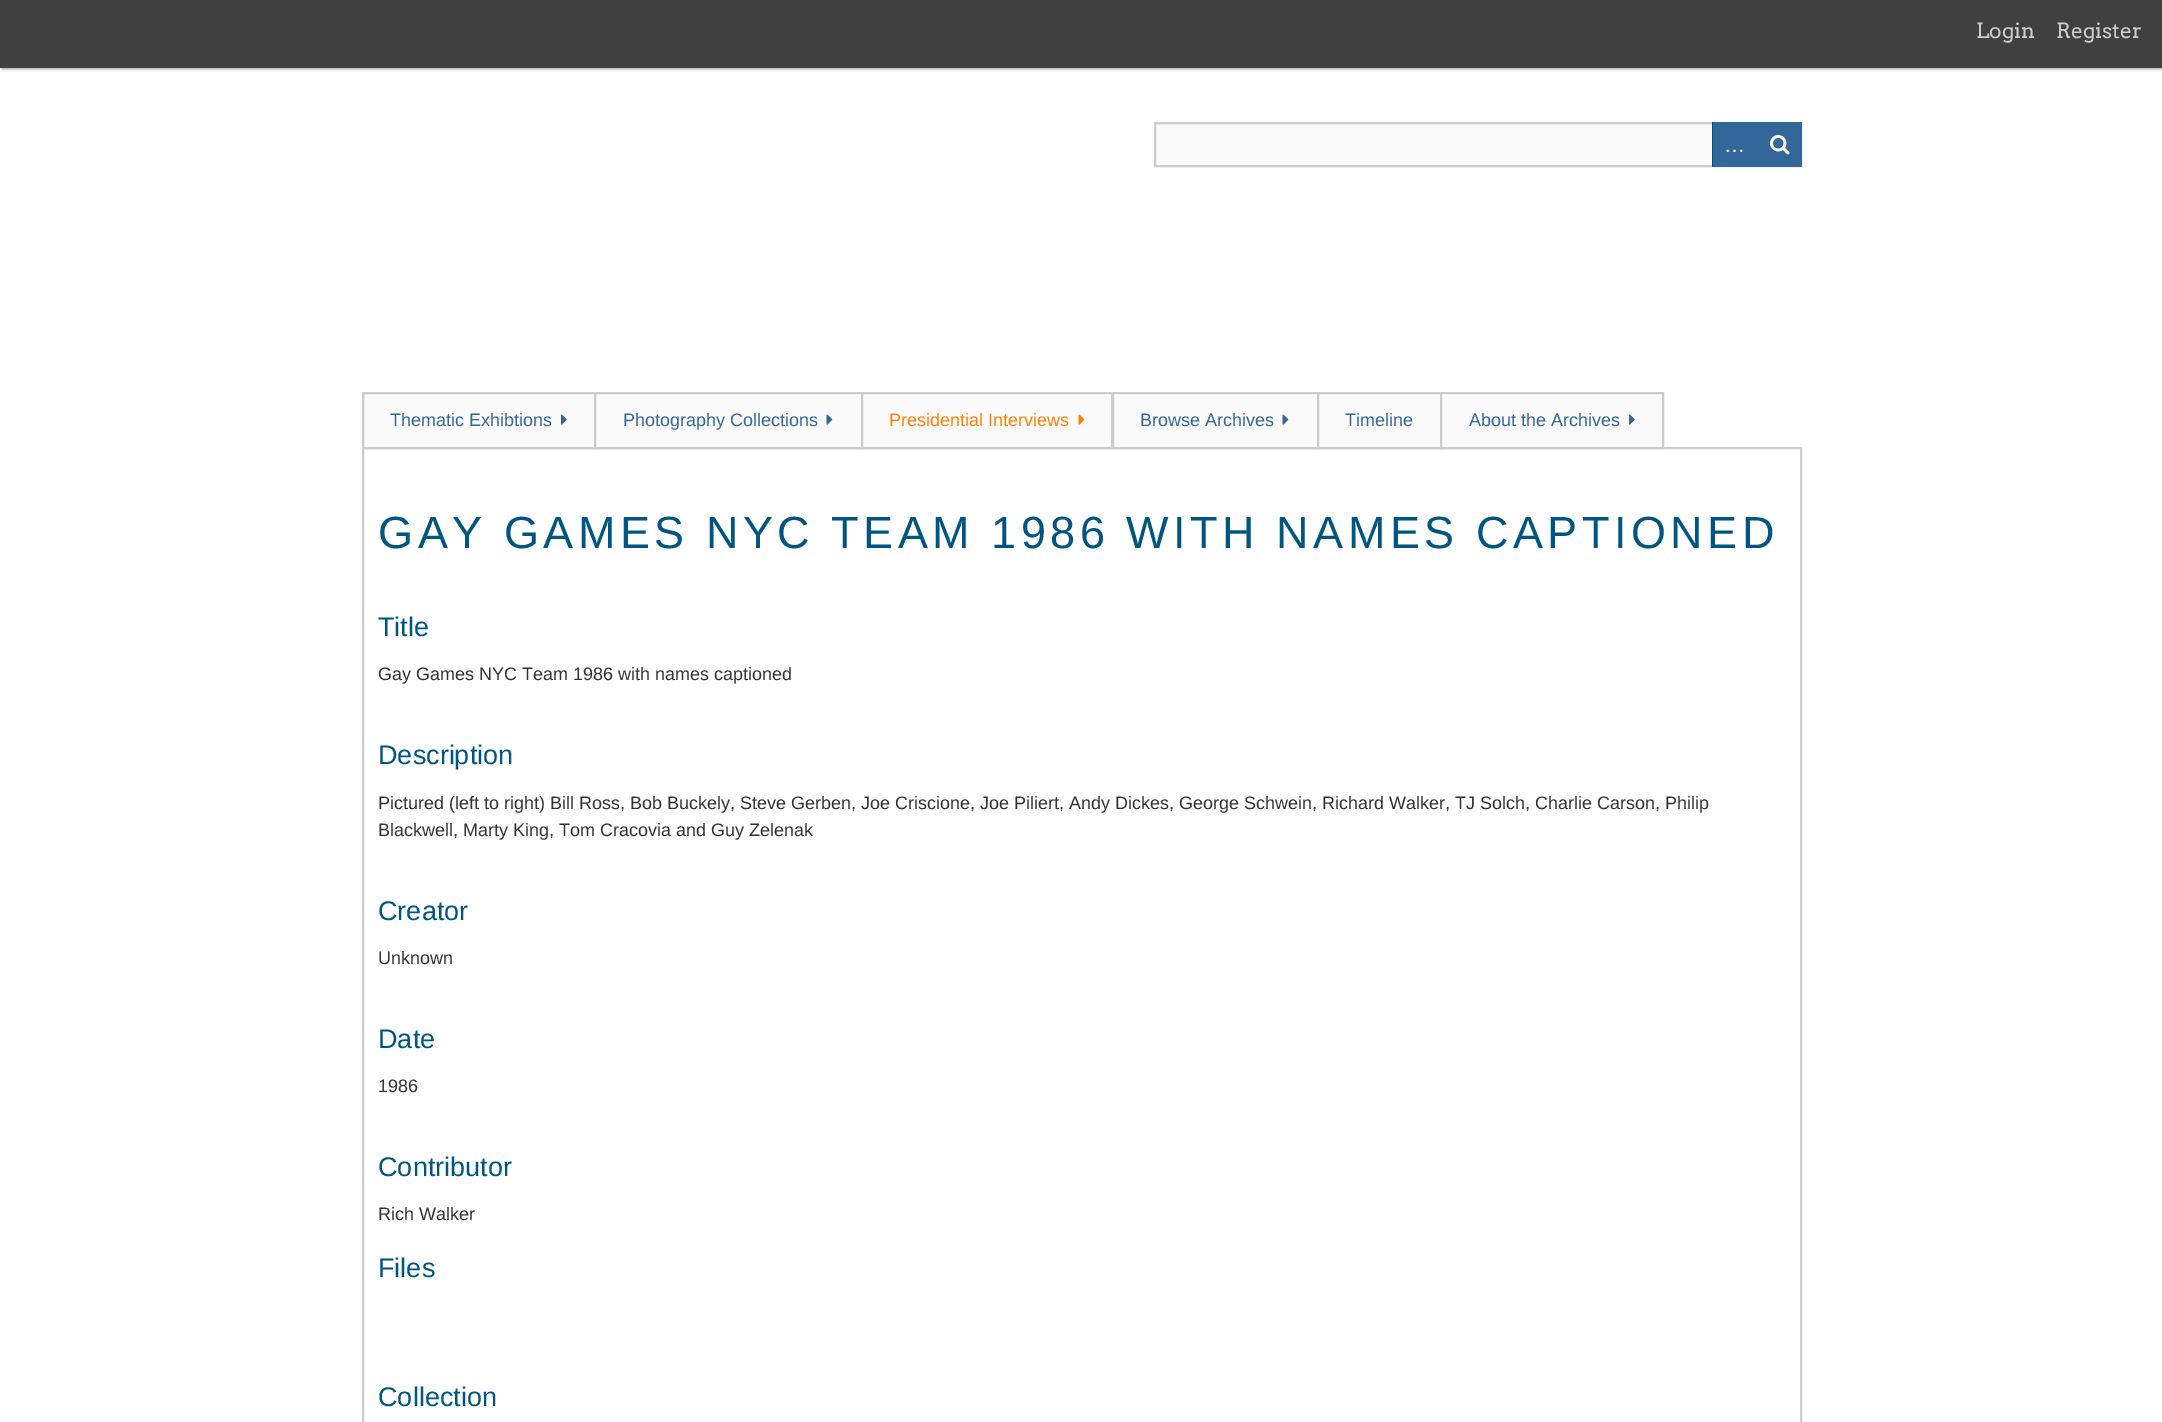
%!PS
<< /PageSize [2162 1422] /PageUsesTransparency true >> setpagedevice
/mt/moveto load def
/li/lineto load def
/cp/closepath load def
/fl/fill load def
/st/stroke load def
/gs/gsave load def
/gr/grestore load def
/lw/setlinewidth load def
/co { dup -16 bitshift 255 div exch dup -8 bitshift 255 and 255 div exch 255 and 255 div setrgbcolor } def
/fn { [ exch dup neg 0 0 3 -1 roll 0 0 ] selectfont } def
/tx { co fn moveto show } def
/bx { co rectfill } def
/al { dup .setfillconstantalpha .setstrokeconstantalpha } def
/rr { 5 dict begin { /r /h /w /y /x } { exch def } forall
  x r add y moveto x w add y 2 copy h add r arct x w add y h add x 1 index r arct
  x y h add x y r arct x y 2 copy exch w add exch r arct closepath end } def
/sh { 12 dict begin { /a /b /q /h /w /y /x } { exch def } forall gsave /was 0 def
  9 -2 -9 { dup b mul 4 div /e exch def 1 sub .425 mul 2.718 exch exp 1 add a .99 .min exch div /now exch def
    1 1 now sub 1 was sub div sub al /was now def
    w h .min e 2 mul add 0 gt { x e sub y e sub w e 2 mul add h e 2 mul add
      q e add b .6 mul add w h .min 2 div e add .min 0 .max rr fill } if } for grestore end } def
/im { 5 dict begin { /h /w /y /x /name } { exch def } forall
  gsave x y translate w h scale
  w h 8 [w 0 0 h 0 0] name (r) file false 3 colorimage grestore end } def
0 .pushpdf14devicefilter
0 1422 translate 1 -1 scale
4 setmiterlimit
0 0 2162 1422 16#FFFFFF bx
16#000000 co
2 2 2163 67 0 1.5 .35 sh
0 0 2162 68 16#404040 bx
1156 124 556 41 16#FAFAFA bx
16#CCCCCC co
2 lw
1155 123 646 43 rectstroke
1712 122 1 45 16#005177 bx
1713 122 89 45 16#336699 bx
(media/1.raw) 1770 135 20 20 im
16#CCCCCC co
363 448 1438 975 rectstroke
16#FAFAFA co
363 393 mt 595 393 li 595 448 li 363 448 li cp gs fl gr
16#CCCCCC co
st
(media/2.raw) 561 414 6 11 im
16#FAFAFA co
595 393 mt 862 393 li 862 448 li 595 448 li cp gs fl gr
16#CCCCCC co
st
(media/3.raw) 826 414 7 11 im
16#FAFAFA co
1113 393 mt 1318 393 li 1318 448 li 1113 448 li cp gs fl gr
16#CCCCCC co
st
16#FAFAFA co
862 393 mt 1112 393 li 1112 448 li 862 448 li cp gs fl gr
16#CCCCCC co
st
(media/4.raw) 1078 414 7 11 im
(media/3.raw) 1282 414 7 11 im
16#FAFAFA co
1318 393 mt 1441 393 li 1441 448 li 1318 448 li cp gs fl gr
16#CCCCCC co
st
16#FAFAFA co
1441 393 mt 1663 393 li 1663 448 li 1441 448 li cp gs fl gr
16#CCCCCC co
st
(media/2.raw) 1629 414 6 11 im
(Login) 1976 38 /Arvo-Regular 21 16#CCCCCC tx
(Register) 2056 38 /Arvo-Regular 21 16#CCCCCC tx
(…) 1724 152 /LiberationSans-Regular 21 16#FFFFFF tx
(Thematic Exhibtions) 390 426 /LiberationSans-Regular 18 16#336699 tx
(Photography Collections) 623 426 /LiberationSans-Regular 18 16#336699 tx
(Presidential Interviews) 889 426 /LiberationSans-Regular 18 16#FF8000 tx
(Browse Archives) 1140 426 /LiberationSans-Regular 18 16#336699 tx
(Timeline) 1345 426 /LiberationSans-Regular 18 16#336699 tx
(About the Archives) 1469 426 /LiberationSans-Regular 18 16#336699 tx
/LiberationSans-Regular 45 fn
16#015581 co
378 548 mt 4.5 0 (GAY GAMES NYC TEAM 1986 WITH NAMES CAPTIONED) ashow
(Title) 378 636 /LiberationSans-Regular 27 16#015581 tx
(Gay Games NYC Team 1986 with names captioned) 378 680 /LiberationSans-Regular 18 16#333333 tx
(Description) 378 764 /LiberationSans-Regular 27 16#015581 tx
(Pictured \(left to right\) Bill Ross, Bob Buckely, Steve Gerben, Joe Criscione, Joe Piliert, Andy Dickes, George Schwein, Richard Walker, TJ Solch, Charlie Carson, Philip) 378 809 /LiberationSans-Regular 18 16#333333 tx
(Blackwell, Marty King, Tom Cracovia and Guy Zelenak) 378 836 /LiberationSans-Regular 18 16#333333 tx
(Creator) 378 920 /LiberationSans-Regular 27 16#015581 tx
(Unknown) 378 964 /LiberationSans-Regular 18 16#333333 tx
(Date) 378 1048 /LiberationSans-Regular 27 16#015581 tx
(1986) 378 1092 /LiberationSans-Regular 18 16#333333 tx
(Contributor) 378 1176 /LiberationSans-Regular 27 16#015581 tx
(Rich Walker) 378 1220 /LiberationSans-Regular 18 16#333333 tx
(Files) 378 1277 /LiberationSans-Regular 27 16#015581 tx
(Collection) 378 1406 /LiberationSans-Regular 27 16#015581 tx
.poppdf14devicefilter showpage
